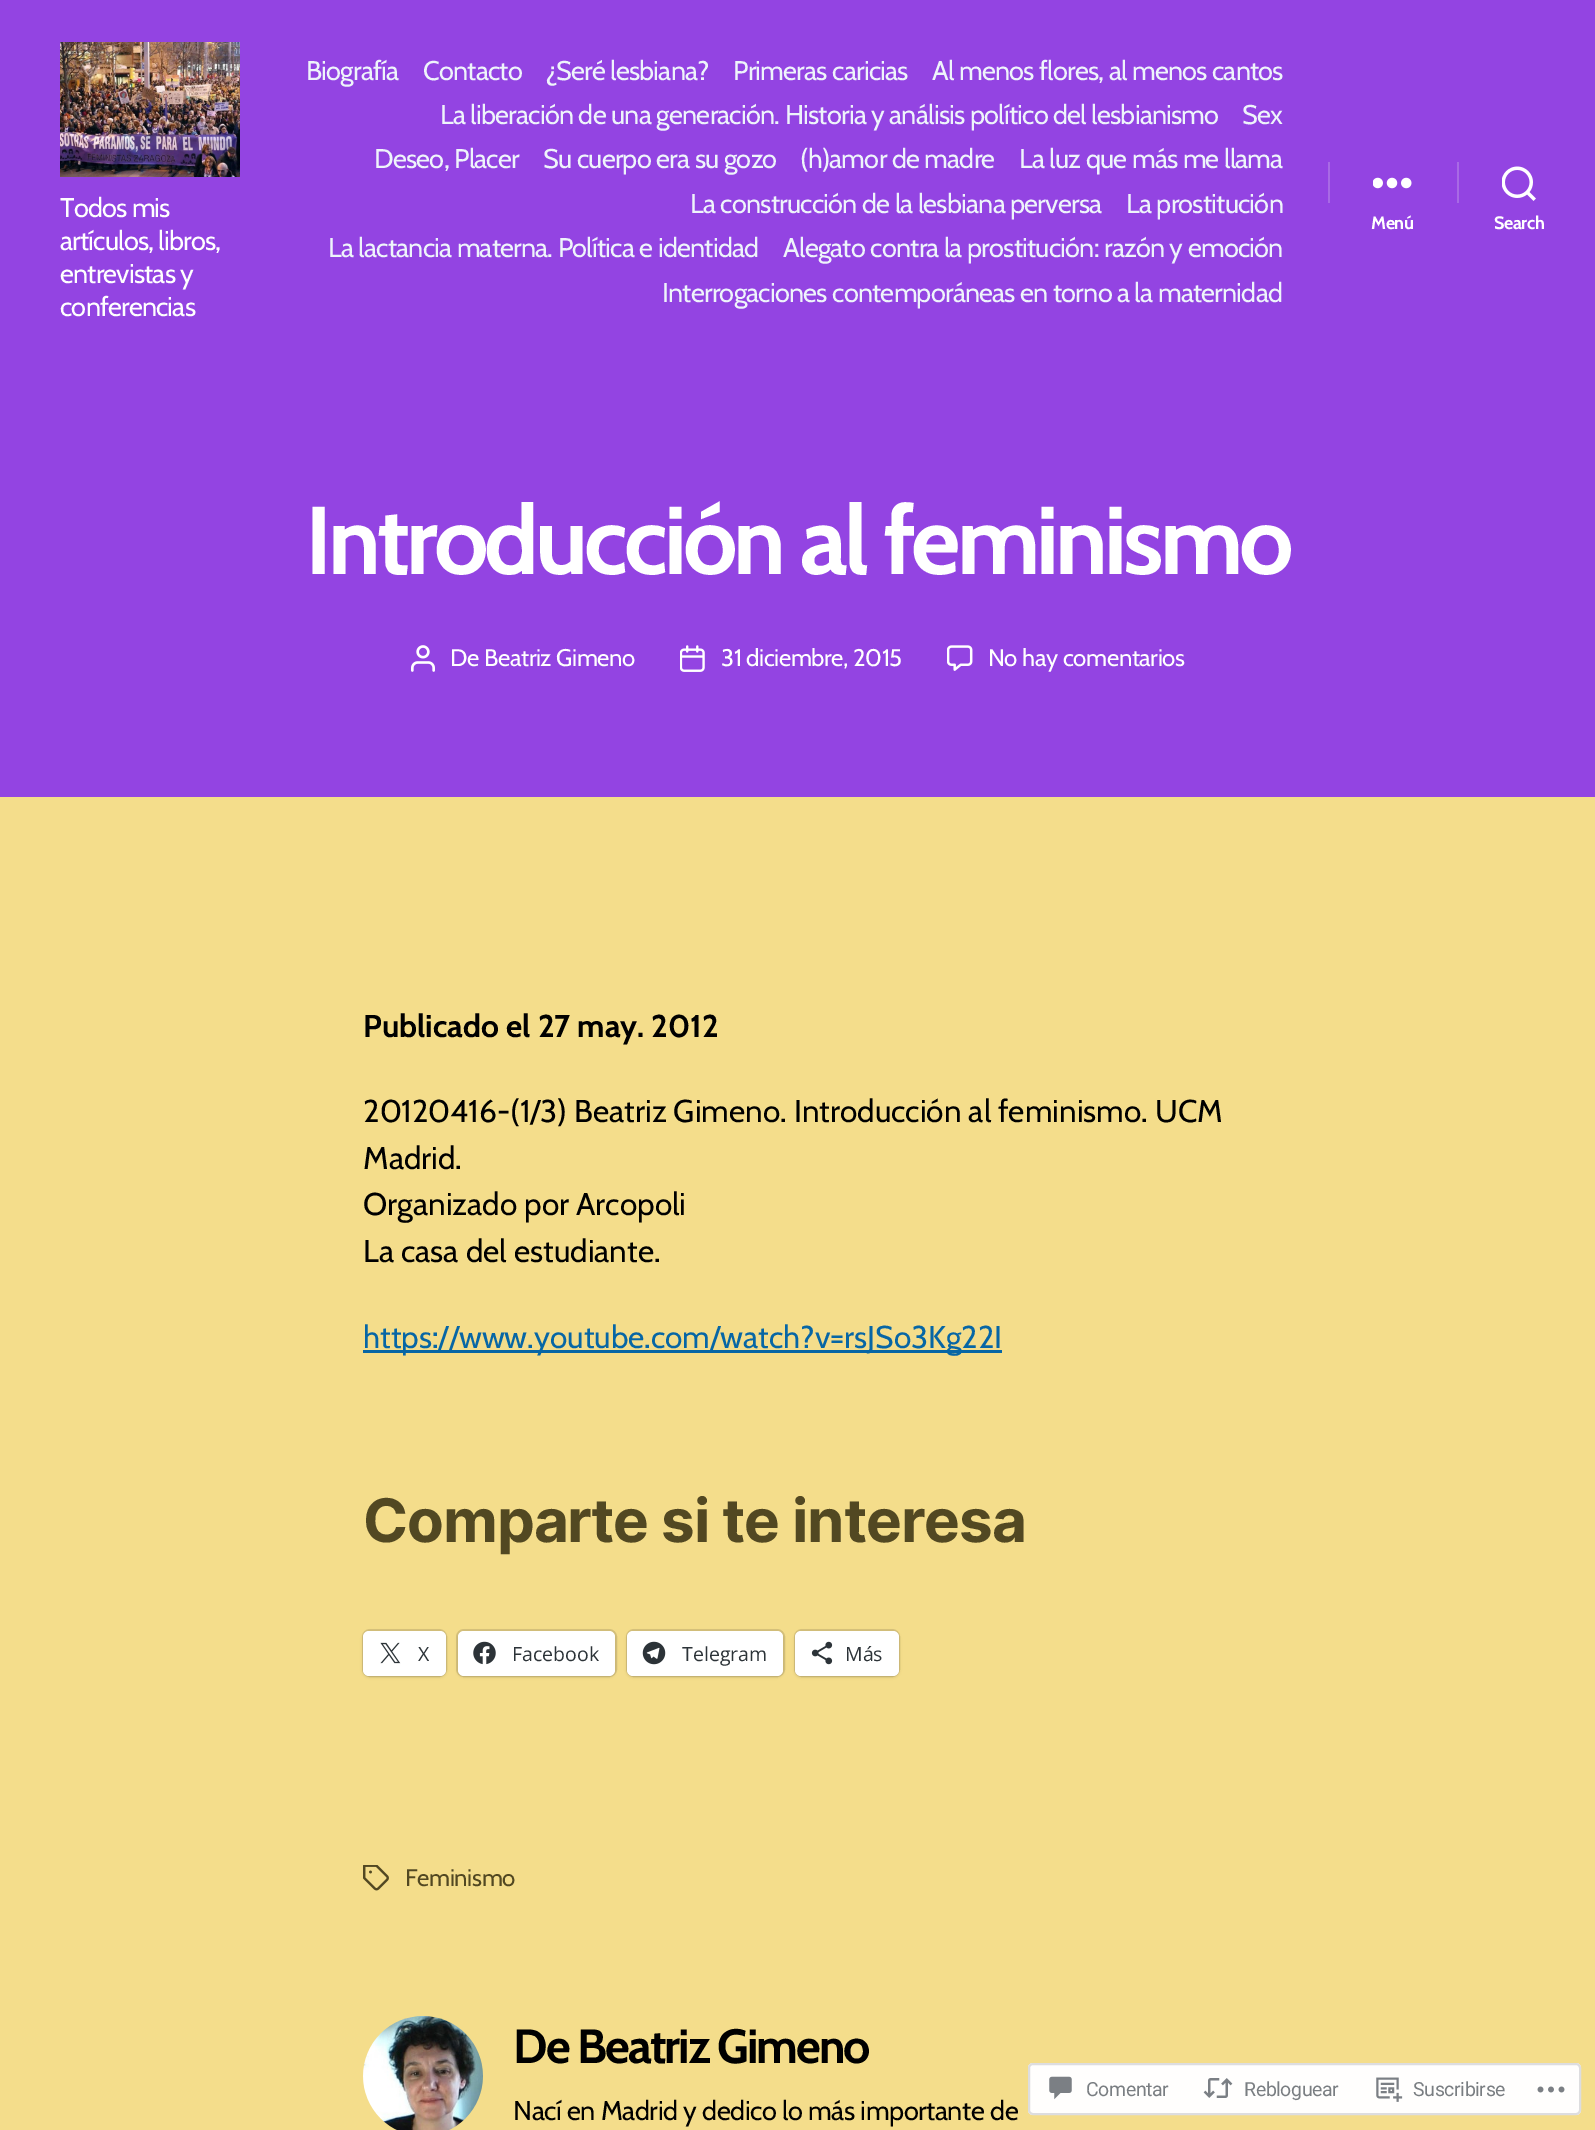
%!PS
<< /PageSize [1595 2130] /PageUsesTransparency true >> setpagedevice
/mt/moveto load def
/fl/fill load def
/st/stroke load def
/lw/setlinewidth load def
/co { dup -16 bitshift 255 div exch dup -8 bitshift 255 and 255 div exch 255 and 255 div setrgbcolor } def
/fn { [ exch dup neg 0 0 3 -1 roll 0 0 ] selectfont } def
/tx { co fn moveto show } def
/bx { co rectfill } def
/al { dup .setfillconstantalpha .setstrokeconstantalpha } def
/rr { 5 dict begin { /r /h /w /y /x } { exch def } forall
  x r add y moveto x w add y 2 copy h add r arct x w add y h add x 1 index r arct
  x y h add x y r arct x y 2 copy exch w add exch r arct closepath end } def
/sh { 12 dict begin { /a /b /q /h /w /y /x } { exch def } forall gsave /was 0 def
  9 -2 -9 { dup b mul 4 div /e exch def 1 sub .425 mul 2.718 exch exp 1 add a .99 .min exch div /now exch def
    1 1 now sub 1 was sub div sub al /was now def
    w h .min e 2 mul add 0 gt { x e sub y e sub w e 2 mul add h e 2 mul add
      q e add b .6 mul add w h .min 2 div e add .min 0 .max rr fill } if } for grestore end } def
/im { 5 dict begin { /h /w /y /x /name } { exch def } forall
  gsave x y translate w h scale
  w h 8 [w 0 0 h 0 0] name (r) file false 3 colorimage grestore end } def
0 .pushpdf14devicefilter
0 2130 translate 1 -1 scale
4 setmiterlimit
0 0 1595 2130 16#F4DD8B bx
0 0 1595 797 16#9344E2 bx
(media/1.raw) 60 42 180 135 im
1328 162 2 41 16#A86AE5 bx
(media/2.raw) 1373 177 39 12 im
1457 162 2 41 16#A86AE5 bx
(media/3.raw) 1502 166 34 35 im
(media/4.raw) 411 645 24 27 im
(media/5.raw) 680 645 25 27 im
(media/6.raw) 947 645 26 26 im
363 1350 639 3 16#0766A5 bx
16#D7C27A co
2 lw
363 1630 83 46 7 rr st
16#000000 co
363 1632 83 45 6 1.5 .12 sh
16#FFFFFF co
363 1631 83 45 6 rr fl
(media/7.raw) 380 1642 21 22 im
16#D7C27A co
457 1630 159 46 7 rr st
16#000000 co
458 1632 157 45 6 1.5 .12 sh
16#FFFFFF co
458 1631 157 45 6 rr fl
(media/8.raw) 473 1641 23 24 im
16#D7C27A co
627 1630 157 46 7 rr st
16#000000 co
627 1632 156 45 6 1.5 .12 sh
16#FFFFFF co
627 1631 156 45 6 rr fl
(media/9.raw) 642 1641 24 24 im
16#D7C27A co
795 1630 104 46 7 rr st
16#000000 co
795 1632 104 45 6 1.5 .12 sh
16#FFFFFF co
795 1631 104 45 6 rr fl
(media/10.raw) 811 1641 22 24 im
(media/11.raw) 363 1865 26 26 im
(media/12.raw) 363 2016 120 114 im
0.98 al
1028 2063 553 52 5 rr fl
16#DCDCDE co
1029 2064 551 50 4 rr st
1 al
(media/13.raw) 1049 2076 23 24 im
(media/14.raw) 1203 2078 30 20 im
(media/15.raw) 1376 2077 27 25 im
(media/16.raw) 1537 2086 28 7 im
/Cabin-Regular 27 fn
16#FFFFFF co
60 217 mt -.8 0 (Todos mis) ashow
60 250 mt -.8 0 (artículos, libros,) ashow
60 283 mt -.8 0 (entrevistas y) ashow
60 316 mt -.8 0 (conferencias) ashow
16#EEF4FB co
306 80 mt -.75 0 (Biografía) ashow
423 80 mt -.75 0 (Contacto) ashow
546 80 mt -.75 0 (¿Seré lesbiana?) ashow
733 80 mt -.75 0 (Primeras caricias) ashow
932 80 mt -.75 0 (Al menos flores, al menos cantos) ashow
440 124 mt -.75 0 (La liberación de una generación. Historia y análisis político del lesbianismo) ashow
1242 124 mt -.75 0 (Sex) ashow
374 168 mt -.75 0 (Deseo, Placer) ashow
543 168 mt -.75 0 (Su cuerpo era su gozo) ashow
800 168 mt -.75 0 (\(h\)amor de madre) ashow
1019 168 mt -.75 0 (La luz que más me llama) ashow
690 213 mt -.75 0 (La construcción de la lesbiana perversa) ashow
1126 213 mt -.75 0 (La prostitución) ashow
328 257 mt -.75 0 (La lactancia materna. Política e identidad) ashow
783 257 mt -.75 0 (Alegato contra la prostitución: razón y emoción) ashow
662 302 mt -.75 0 (Interrogaciones contemporáneas en torno a la maternidad) ashow
/Cabin-Bold 18 fn
16#FFFFFF co
1371 229 mt -.4 0 (Menú) ashow
1494 229 mt -.4 0 (Search) ashow
/Cabin-Bold 96 fn
305 574 mt -4 0 (Introducción al feminismo) ashow
/Cabin-Regular 24 fn
450 666 mt -.4 0 (De Beatriz Gimeno) ashow
721 666 mt -.4 0 (31 diciembre, 2015) ashow
988 666 mt -.4 0 (No hay comentarios) ashow
(Publicado el 27 may. 2012) 363 1037 /Cabin-Bold 31.5 16#000000 tx
(20120416-\(1/3\) Beatriz Gimeno. Introducción al feminismo. UCM) 363 1122 /Cabin-Regular 31.5 16#000000 tx
(Madrid.) 363 1169 /Cabin-Regular 31.5 16#000000 tx
(Organizado por Arcopoli) 363 1215 /Cabin-Regular 31.5 16#000000 tx
(La casa del estudiante.) 363 1262 /Cabin-Regular 31.5 16#000000 tx
(https://www.youtube.com/watch?v=rsJSo3Kg22I) 363 1348 /Cabin-Regular 31.5 16#0766A5 tx
/Inter-Bold 60 fn
16#524822 co
363 1542 mt -1 0 (Comparte si te interesa) ashow
(X) 418 1661 /OpenSans-Regular 19.5 16#2C3338 tx
(Facebook) 512 1661 /OpenSans-Regular 19.5 16#2C3338 tx
(Telegram) 682 1661 /OpenSans-Regular 19.5 16#2C3338 tx
(Más) 845 1661 /OpenSans-Regular 19.5 16#2C3338 tx
/Cabin-Regular 24 fn
16#524822 co
405 1886 mt -.4 0 (Feminismo) ashow
/Cabin-Bold 48 fn
16#000000 co
513 2063 mt -2 0 (De Beatriz Gimeno) ashow
/Cabin-Regular 27 fn
513 2120 mt -.4 0 (Nací en Madrid y dedico lo más importante de) ashow
/Roboto-Regular 19.5 fn
16#7A7E82 co
1086 2096 mt -.4 0 (Comentar) ashow
1244 2096 mt -.4 0 (Rebloguear) ashow
1413 2096 mt -.4 0 (Suscribirse) ashow
.poppdf14devicefilter showpage
